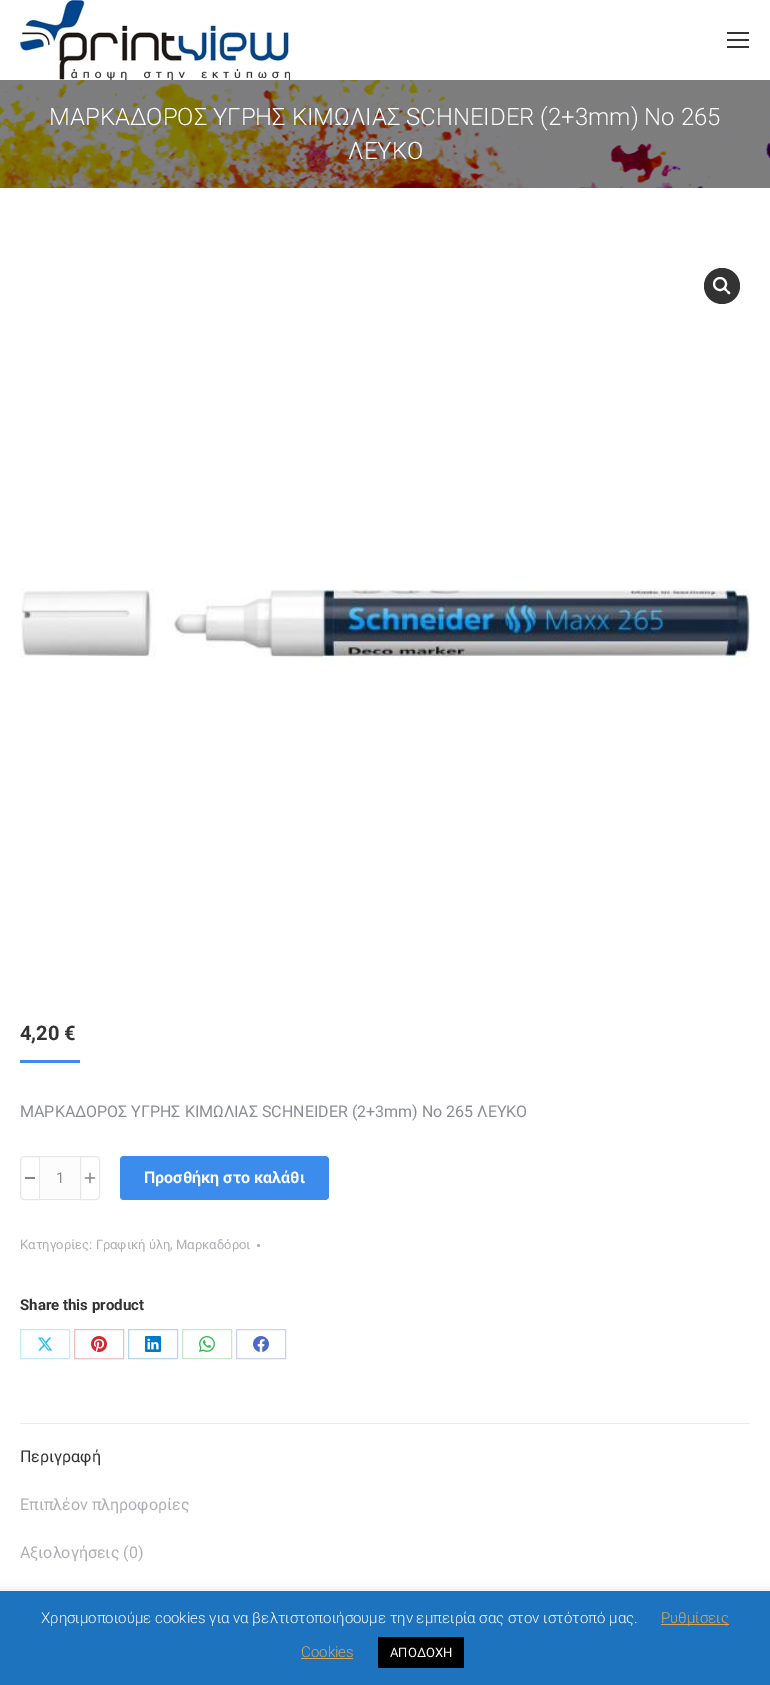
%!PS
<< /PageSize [770 1685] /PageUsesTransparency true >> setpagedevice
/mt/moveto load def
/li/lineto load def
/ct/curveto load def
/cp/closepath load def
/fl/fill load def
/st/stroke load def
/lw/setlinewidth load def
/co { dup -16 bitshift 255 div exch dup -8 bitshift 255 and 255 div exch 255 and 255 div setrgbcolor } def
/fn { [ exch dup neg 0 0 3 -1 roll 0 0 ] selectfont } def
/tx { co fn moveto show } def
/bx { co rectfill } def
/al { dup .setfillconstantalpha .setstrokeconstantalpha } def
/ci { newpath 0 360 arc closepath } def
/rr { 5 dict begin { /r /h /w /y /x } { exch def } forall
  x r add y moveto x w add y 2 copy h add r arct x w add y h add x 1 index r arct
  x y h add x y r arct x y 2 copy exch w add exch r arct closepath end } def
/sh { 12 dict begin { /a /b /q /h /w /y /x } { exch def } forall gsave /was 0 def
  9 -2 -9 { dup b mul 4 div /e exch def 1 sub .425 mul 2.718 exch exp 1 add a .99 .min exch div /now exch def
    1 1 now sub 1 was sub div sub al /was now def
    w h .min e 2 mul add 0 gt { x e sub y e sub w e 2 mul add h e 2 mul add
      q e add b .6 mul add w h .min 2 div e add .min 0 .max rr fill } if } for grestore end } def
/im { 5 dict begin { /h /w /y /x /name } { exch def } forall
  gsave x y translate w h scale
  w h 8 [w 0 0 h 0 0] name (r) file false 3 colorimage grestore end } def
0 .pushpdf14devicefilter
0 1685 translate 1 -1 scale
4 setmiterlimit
0 0 770 1685 16#FFFFFF bx
(media/1.raw) 20 0 270 80 im
727 32 22 2 16#333333 bx
727 39 22 2 16#333333 bx
727 46 22 2 16#333333 bx
(media/2.raw) 0 80 770 108 im
722 286 18 ci fl
16#FFFFFF co
2 lw
720 284 6 ci st
724 288 mt 725.5 287 727 289.5 727.5 290.5 ct 728.5 291 731 292.5 730 294 ct 728.5 295 727 292.5 726.5 291.5 ct 725.5 291 723 289.5 724 288 ct cp fl
(media/3.raw) 20 588 730 78 im
20 1060 60 3 16#3B8CED bx
16#E7E7E7 co
1 lw
24 1156.5 mt 39.5 1156.5 li 39.5 1199.5 li 24 1199.5 li 22 1199.5 20.5 1198 20.5 1196 ct 20.5 1160 li 20.5 1158 22 1156.5 24 1156.5 ct cp st
25 1177 10 2 16#85868C bx
40 1157 40 42 16#FCFCFC bx
40 1156 40 1 16#E4E4E4 bx
40 1199 40 1 16#E4E4E4 bx
16#E7E7E7 co
80.5 1156.5 mt 96 1156.5 li 98 1156.5 99.5 1158 99.5 1160 ct 99.5 1196 li 99.5 1198 98 1199.5 96 1199.5 ct 80.5 1199.5 li cp st
(media/4.raw) 84 1172 12 12 im
16#3B8CED co
120 1156 209 44 4 rr fl
16#ADAFB3 co
258.5 1245.5 1.5 ci fl
16#BFECF9 co
20.5 1329.5 49 29 rectstroke
(media/5.raw) 38 1337 15 14 im
16#F1BFC2 co
74.5 1329.5 49 29 rectstroke
(media/6.raw) 91 1336 16 16 im
16#B3D7EE co
128.5 1329.5 49 29 rectstroke
(media/7.raw) 145 1336 16 16 im
16#C3E9CA co
182.5 1329.5 49 29 rectstroke
(media/8.raw) 199 1336 16 16 im
16#C9D2EE co
236.5 1329.5 49 29 rectstroke
(media/9.raw) 253 1336 16 16 im
20 1423 730 1 16#EBEBEB bx
16#ACABAB co
0 1590 770 94 0 5 .3 sh
0 1591 770 94 16#1E73BE bx
661 1624 68 1 16#DDA54F bx
301 1658 52 1 16#DDA54F bx
378 1637 86 31 16#000000 bx
(ΜΑΡΚΑΔΟΡΟΣ ΥΓΡΗΣ ΚΙΜΩΛΙΑΣ SCHNEIDER \(2+3mm\) Νο 265) 49 125 /Roboto-Light 24 16#FFFFFF tx
(ΛΕΥΚΟ) 348 159 /Roboto-Light 24 16#FFFFFF tx
(4,20 €) 20 1040 /Roboto-Bold 20 16#333333 tx
(ΜΑΡΚΑΔΟΡΟΣ ΥΓΡΗΣ ΚΙΜΩΛΙΑΣ SCHNEIDER \(2+3mm\) Νο 265 ΛΕΥΚΟ) 20 1117 /Roboto-Regular 16 16#8B8D94 tx
(1) 56 1183 /Roboto-Regular 15 16#85868C tx
(Προσθήκη στο καλάθι) 144 1183 /Roboto-Bold 16 16#FFFFFF tx
(Κατηγορίες: Γραφική ύλη, Μαρκαδόροι) 20 1249 /Roboto-Regular 13 16#ADAFB3 tx
(Share this product) 20 1310 /Roboto-Bold 15 16#333333 tx
(Περιγραφή) 20 1462 /Roboto-Regular 16 16#333333 tx
(Επιπλέον πληροφορίες) 20 1510 /Roboto-Regular 16 16#ADAFB3 tx
(Αξιολογήσεις \(0\)) 20 1558 /Roboto-Regular 16 16#ADAFB3 tx
(Χρησιμοποιούμε cookies για να βελτιστοποιήσουμε την εμπειρία σας στον ιστότοπό μας.) 41 1623 /Roboto-Light 15 16#FFFFFF tx
(Ρυθμίσεις) 661 1623 /Roboto-Light 15 16#DDA54F tx
(Cookies) 301 1657 /Roboto-Light 15 16#DDA54F tx
(ΑΠΟΔΟΧΗ) 390 1657 /Roboto-Regular 13 16#FFFFFF tx
.poppdf14devicefilter showpage
